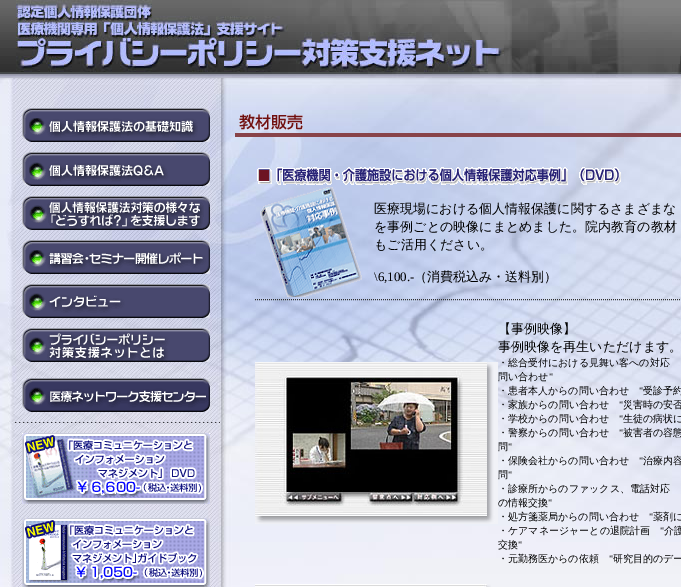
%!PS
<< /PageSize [681 587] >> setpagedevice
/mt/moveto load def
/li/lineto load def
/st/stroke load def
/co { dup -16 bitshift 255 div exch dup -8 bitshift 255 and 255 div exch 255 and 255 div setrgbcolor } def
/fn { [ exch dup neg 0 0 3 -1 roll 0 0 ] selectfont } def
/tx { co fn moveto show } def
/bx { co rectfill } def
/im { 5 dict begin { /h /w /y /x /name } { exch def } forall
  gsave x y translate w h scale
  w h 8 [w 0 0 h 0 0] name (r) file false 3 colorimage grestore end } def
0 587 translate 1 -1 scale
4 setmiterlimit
0 0 681 587 16#FFFFFF bx
(media/1.raw) 0 0 681 78 im
(media/2.raw) 0 78 681 509 im
(media/3.raw) 22 108 188 34 im
(media/4.raw) 22 152 188 34 im
(media/5.raw) 22 196 188 34 im
(media/6.raw) 22 240 188 34 im
(media/7.raw) 22 284 188 34 im
(media/8.raw) 22 328 188 34 im
(media/9.raw) 22 378 188 34 im
(media/10.raw) 15 422 205 1 im
(media/11.raw) 22 433 188 71 im
(media/12.raw) 22 518 188 69 im
(media/13.raw) 235 114 446 23 im
(media/14.raw) 257 167 364 18 im
(media/15.raw) 260 187 102 110 im
16#333333 co
[1 1] 0 setdash
255 299.5 mt 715 299.5 li st
(media/16.raw) 255 362 243 162 im
(media/17.raw) 255 584 236 3 im
(医療現場における個人情報保護に関するさまざまな) 374 213 /WenQuanYiZenHei-Medium 13 16#000000 tx
(を事例ごとの映像にまとめました。院内教育の教材) 374 231 /WenQuanYiZenHei-Medium 13 16#000000 tx
(もご活用ください。) 374 249 /WenQuanYiZenHei-Medium 13 16#000000 tx
(\\6,100.-) 374 281 /LiberationSerif-Regular 13 16#000000 tx
(（消費税込み・送料別）) 414 281 /WenQuanYiZenHei-Medium 13 16#000000 tx
(【事例映像】) 498 333 /WenQuanYiZenHei-Medium 13 16#000000 tx
(事例映像を再生いただけます。) 498 351 /WenQuanYiZenHei-Medium 13 16#000000 tx
(・総合受付における見舞い客への対応) 498 366 /WenQuanYiZenHei-Medium 10 16#000000 tx
(問い合わせ) 498 380 /WenQuanYiZenHei-Medium 10 16#000000 tx
(") 549 380 /LiberationSerif-Regular 10 16#000000 tx
(・患者本人からの問い合わせ) 498 394 /WenQuanYiZenHei-Medium 10 16#000000 tx
(") 639 394 /LiberationSerif-Regular 10 16#000000 tx
(受診予約) 643 394 /WenQuanYiZenHei-Medium 10 16#000000 tx
(・家族からの問い合わせ) 498 408 /WenQuanYiZenHei-Medium 10 16#000000 tx
(") 619 408 /LiberationSerif-Regular 10 16#000000 tx
(災害時の安否) 623 408 /WenQuanYiZenHei-Medium 10 16#000000 tx
(・学校からの問い合わせ) 498 422 /WenQuanYiZenHei-Medium 10 16#000000 tx
(") 619 422 /LiberationSerif-Regular 10 16#000000 tx
(生徒の病状に) 623 422 /WenQuanYiZenHei-Medium 10 16#000000 tx
(・警察からの問い合わせ) 498 436 /WenQuanYiZenHei-Medium 10 16#000000 tx
(") 619 436 /LiberationSerif-Regular 10 16#000000 tx
(被害者の容態) 623 436 /WenQuanYiZenHei-Medium 10 16#000000 tx
(問) 498 450 /WenQuanYiZenHei-Medium 10 16#000000 tx
(") 508 450 /LiberationSerif-Regular 10 16#000000 tx
(・保険会社からの問い合わせ) 498 464 /WenQuanYiZenHei-Medium 10 16#000000 tx
(") 639 464 /LiberationSerif-Regular 10 16#000000 tx
(治療内容) 643 464 /WenQuanYiZenHei-Medium 10 16#000000 tx
(問) 498 478 /WenQuanYiZenHei-Medium 10 16#000000 tx
(") 508 478 /LiberationSerif-Regular 10 16#000000 tx
(・診療所からのファックス、電話対応) 498 492 /WenQuanYiZenHei-Medium 10 16#000000 tx
(の情報交換) 498 506 /WenQuanYiZenHei-Medium 10 16#000000 tx
(") 548 506 /LiberationSerif-Regular 10 16#000000 tx
(・処方箋薬局からの問い合わせ) 498 520 /WenQuanYiZenHei-Medium 10 16#000000 tx
(") 649 520 /LiberationSerif-Regular 10 16#000000 tx
(薬剤に) 653 520 /WenQuanYiZenHei-Medium 10 16#000000 tx
(・ケアマネージャーとの退院計画) 498 534 /WenQuanYiZenHei-Medium 10 16#000000 tx
(") 660 534 /LiberationSerif-Regular 10 16#000000 tx
(介護) 664 534 /WenQuanYiZenHei-Medium 10 16#000000 tx
(交換) 498 548 /WenQuanYiZenHei-Medium 10 16#000000 tx
(") 518 548 /LiberationSerif-Regular 10 16#000000 tx
(・元勤務医からの依頼) 498 562 /WenQuanYiZenHei-Medium 10 16#000000 tx
(") 609 562 /LiberationSerif-Regular 10 16#000000 tx
(研究目的のデー) 613 562 /WenQuanYiZenHei-Medium 10 16#000000 tx
showpage
